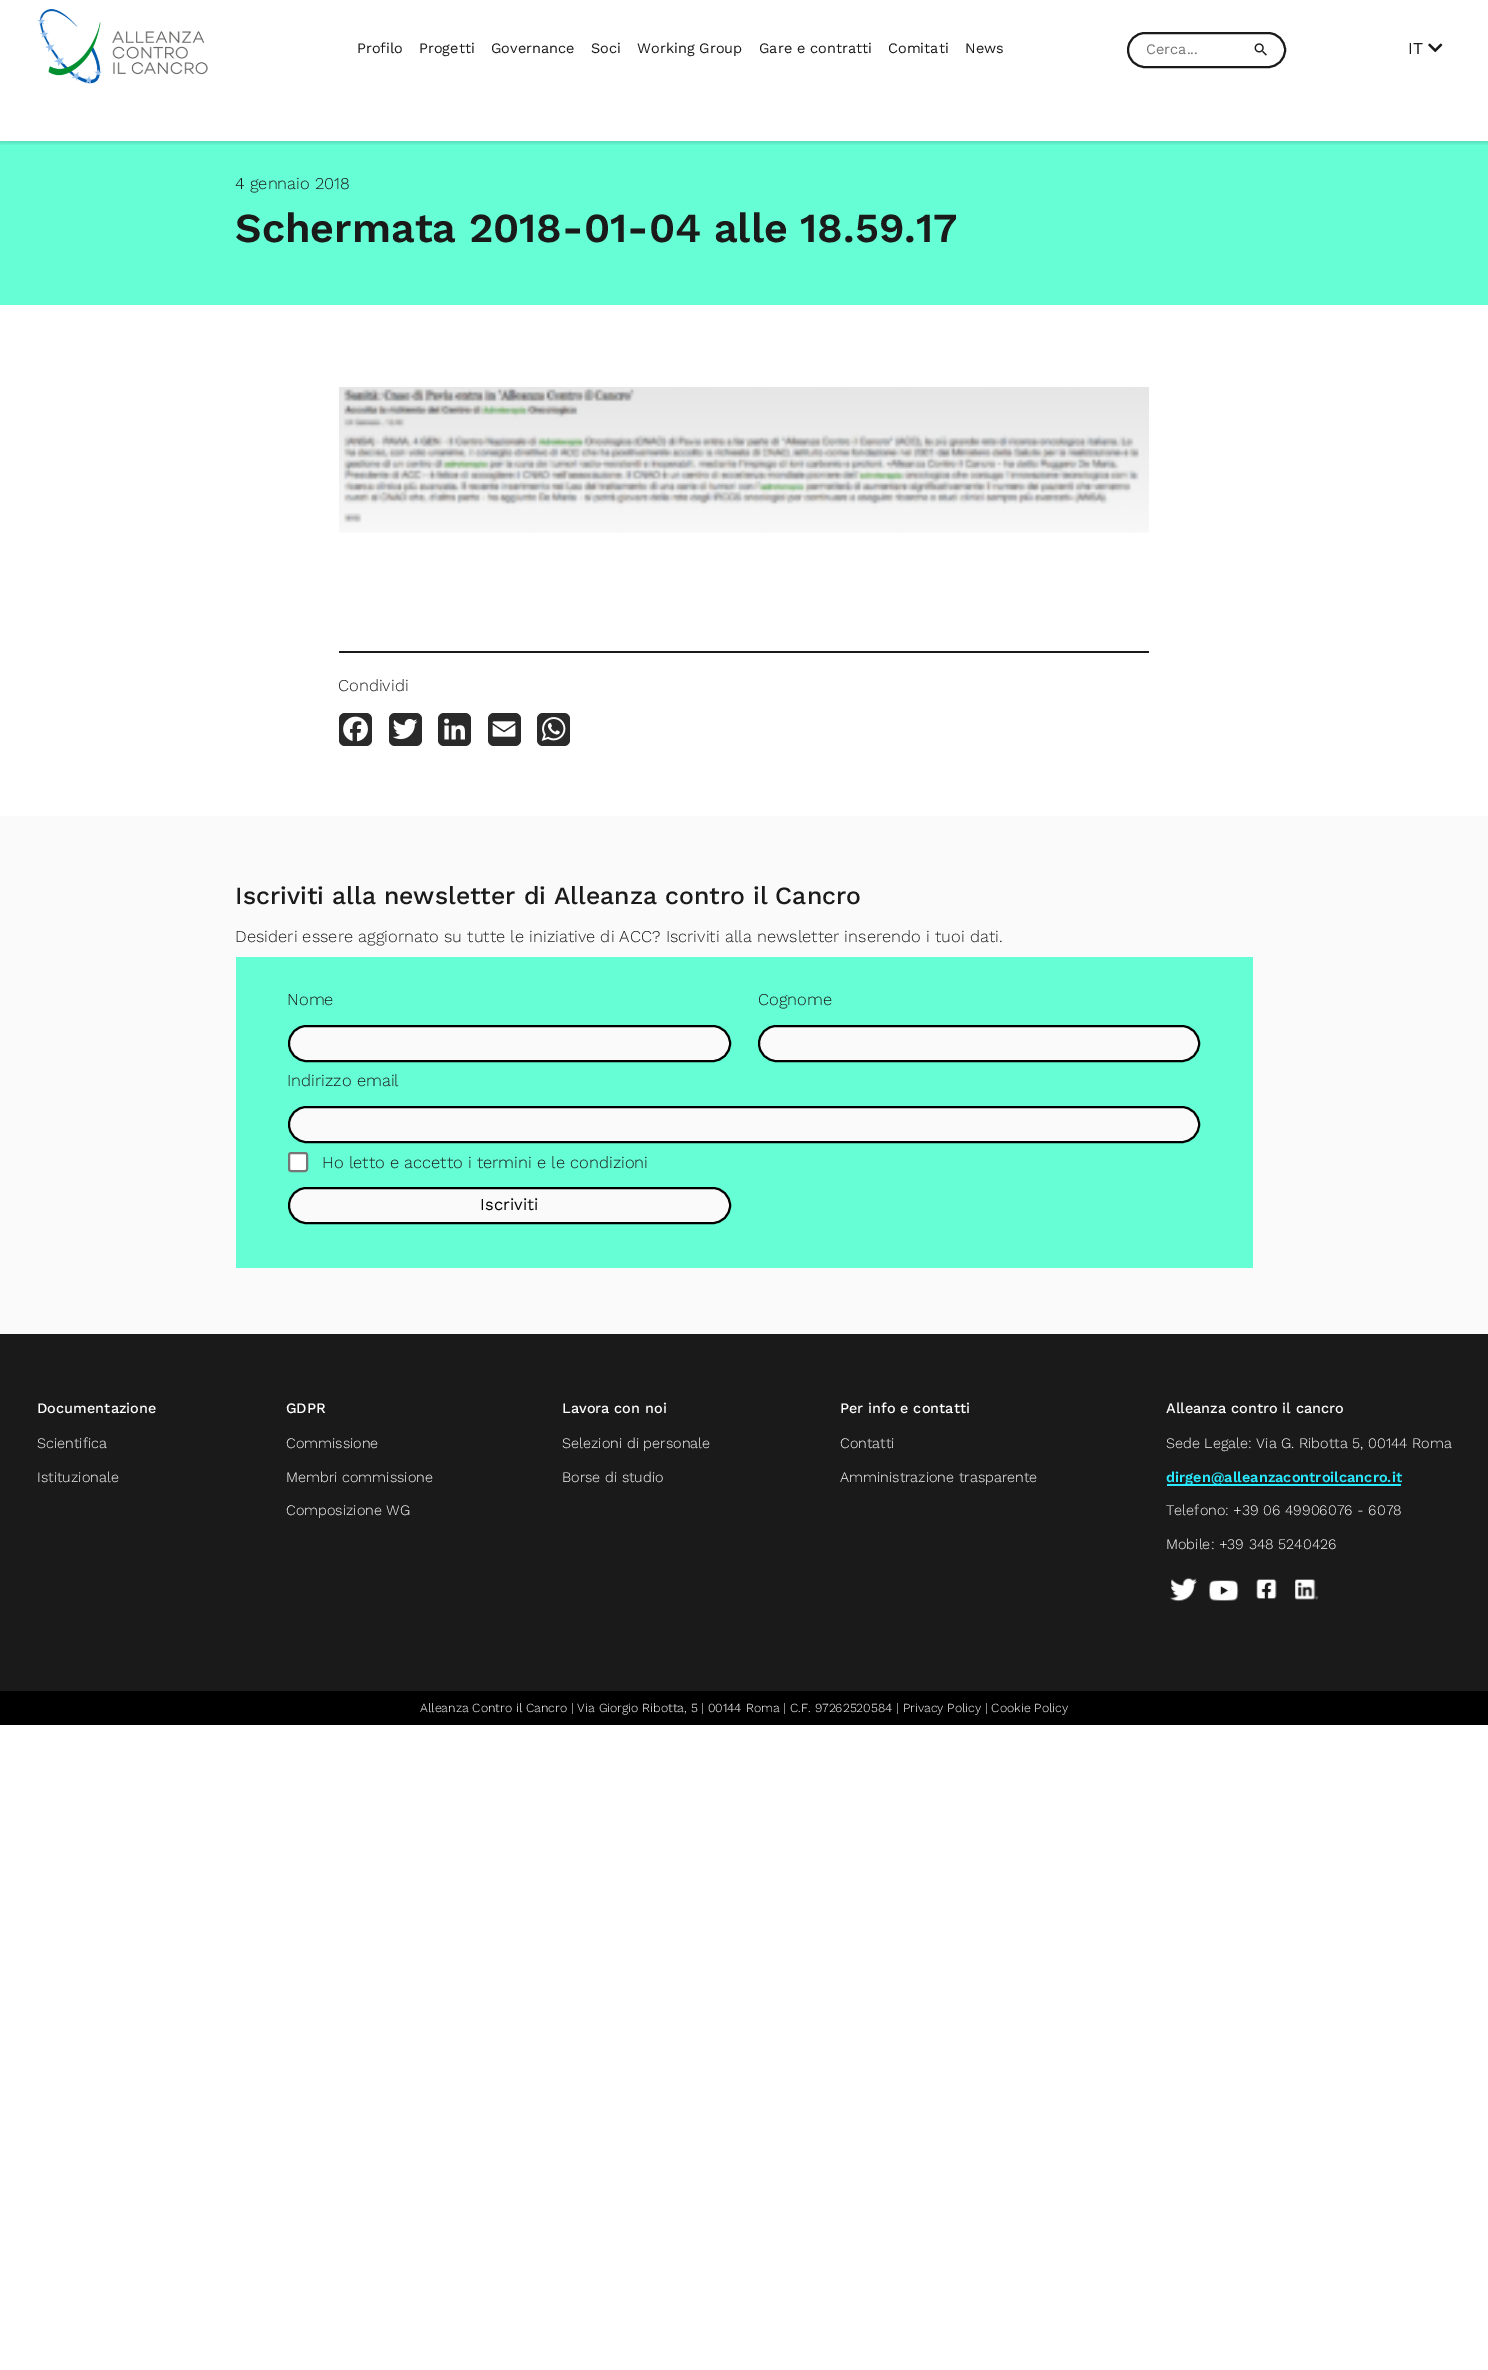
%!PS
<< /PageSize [1488 2370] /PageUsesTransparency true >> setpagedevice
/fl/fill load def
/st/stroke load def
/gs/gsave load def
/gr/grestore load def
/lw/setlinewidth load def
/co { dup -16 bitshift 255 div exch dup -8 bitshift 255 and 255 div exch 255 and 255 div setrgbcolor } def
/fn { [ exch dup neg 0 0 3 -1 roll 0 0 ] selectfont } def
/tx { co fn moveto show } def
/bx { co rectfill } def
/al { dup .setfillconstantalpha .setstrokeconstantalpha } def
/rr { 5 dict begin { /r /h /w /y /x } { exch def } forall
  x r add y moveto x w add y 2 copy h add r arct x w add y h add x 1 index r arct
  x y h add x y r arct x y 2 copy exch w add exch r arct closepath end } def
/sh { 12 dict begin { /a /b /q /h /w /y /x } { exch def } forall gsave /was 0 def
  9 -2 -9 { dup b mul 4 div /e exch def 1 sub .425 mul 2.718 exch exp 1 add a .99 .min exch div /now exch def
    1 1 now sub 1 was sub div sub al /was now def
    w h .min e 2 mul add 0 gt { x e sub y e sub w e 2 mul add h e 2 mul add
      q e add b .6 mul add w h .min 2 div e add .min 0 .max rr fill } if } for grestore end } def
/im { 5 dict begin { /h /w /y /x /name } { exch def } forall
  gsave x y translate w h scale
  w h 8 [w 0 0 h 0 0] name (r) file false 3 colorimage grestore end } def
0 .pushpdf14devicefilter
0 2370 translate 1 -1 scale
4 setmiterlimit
0 0 1488 2370 16#FFFFFF bx
0 141 1488 164 16#66FFD5 bx
gs
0 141 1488 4 rectclip
16#000000 co
0 2 1488 141 0 2 .15 sh
gr
(media/1.raw) 37 9 171 75 im
16#1A1A1A co
2 lw
1128 33 157 34 17 rr st
(media/2.raw) 1254 43 13 13 im
(media/3.raw) 1428 43 15 9 im
(media/4.raw) 339 387 810 146 im
339 651 810 2 16#1A1A1A bx
16#2A2A2A co
339 713 33 33 6 rr fl
(media/5.raw) 343 716 25 26 im
389 713 33 33 6 rr fl
(media/6.raw) 392 719 26 21 im
438 713 33 33 6 rr fl
(media/7.raw) 444 718 21 22 im
488 713 33 33 6 rr fl
(media/8.raw) 492 721 24 16 im
537 713 33 33 6 rr fl
(media/9.raw) 541 717 25 24 im
0 816 1488 518 16#FAFAFA bx
236 957 1017 311 16#66FFD5 bx
16#FAFAFA co
289 1026 441 35 17.5 rr gs fl gr
16#000000 co
st
16#FAFAFA co
759 1026 440 35 17.5 rr gs fl gr
16#000000 co
st
16#FAFAFA co
289 1107 910 35 17.5 rr gs fl gr
16#000000 co
st
16#FFFFFF co
289 1153 18 18 2 rr gs fl gr
16#767676 co
st
16#FAFAFA co
289 1188 441 35 17.5 rr gs fl gr
16#000000 co
st
0 1334 1488 357 16#1A1A1A bx
1167 1484 234 2 16#29E9FF bx
(media/10.raw) 1170 1578 27 24 im
(media/11.raw) 1209 1580 30 21 im
(media/12.raw) 1256 1579 21 20 im
(media/13.raw) 1295 1579 24 21 im
0 1691 1488 34 16#000000 bx
(Profilo) 357 53 /WorkSans-Regular 14.5 16#1A1A1A tx
(Progetti) 419 53 /WorkSans-Regular 14.5 16#1A1A1A tx
(Governance) 491 53 /WorkSans-Regular 14.5 16#1A1A1A tx
(Soci) 591 53 /WorkSans-Regular 14.5 16#1A1A1A tx
(Working Group) 637 53 /WorkSans-Regular 14.5 16#1A1A1A tx
(Gare e contratti) 759 53 /WorkSans-Regular 14.5 16#1A1A1A tx
(Comitati) 888 53 /WorkSans-Regular 14.5 16#1A1A1A tx
(News) 965 53 /WorkSans-Regular 14.5 16#1A1A1A tx
(Cerca...) 1146 54 /WorkSans-Regular 14.5 16#757575 tx
(IT) 1408 54 /WorkSans-Regular 16.55 16#1A1A1A tx
(4 gennaio 2018) 235 189 /WorkSans-Light 16.55 16#1A1A1A tx
(Schermata 2018-01-04 alle 18.59.17) 235 242 /WorkSans-SemiBold 41.3 16#1A1A1A tx
(Condividi) 338 691 /WorkSans-Light 16.55 16#1A1A1A tx
(Iscriviti alla newsletter di Alleanza contro il Cancro) 235 904 /WorkSans-Medium 24.8 16#1A1A1A tx
(Desideri essere aggiornato su tutte le iniziative di ACC? Iscriviti alla newsletter inserendo i tuoi dati.) 235 942 /WorkSans-Light 16.55 16#1A1A1A tx
(Nome) 287 1005 /WorkSans-Light 16.55 16#1A1A1A tx
(Cognome) 758 1005 /WorkSans-Light 16.55 16#1A1A1A tx
(Indirizzo email) 287 1086 /WorkSans-Light 16.55 16#1A1A1A tx
(Ho letto e accetto i termini e le condizioni) 322 1168 /WorkSans-Light 16.55 16#1A1A1A tx
(Iscriviti) 480 1210 /WorkSans-Regular 16.55 16#000000 tx
(Documentazione) 37 1413 /WorkSans-Medium 14.5 16#FFFFFF tx
(Scientifica) 37 1448 /WorkSans-Light 14.5 16#FFFFFF tx
(Istituzionale) 37 1482 /WorkSans-Light 14.5 16#FFFFFF tx
(GDPR) 286 1413 /WorkSans-Medium 14.5 16#FFFFFF tx
(Commissione) 286 1448 /WorkSans-Light 14.5 16#FFFFFF tx
(Membri commissione) 286 1482 /WorkSans-Light 14.5 16#FFFFFF tx
(Composizione WG) 286 1515 /WorkSans-Light 14.5 16#FFFFFF tx
(Lavora con noi) 562 1413 /WorkSans-Medium 14.5 16#FFFFFF tx
(Selezioni di personale) 562 1448 /WorkSans-Light 14.5 16#FFFFFF tx
(Borse di studio) 562 1482 /WorkSans-Light 14.5 16#FFFFFF tx
(Per info e contatti) 840 1413 /WorkSans-Medium 14.5 16#FFFFFF tx
(Contatti) 840 1448 /WorkSans-Light 14.5 16#FFFFFF tx
(Amministrazione trasparente) 840 1482 /WorkSans-Light 14.5 16#FFFFFF tx
(Alleanza contro il cancro) 1166 1413 /WorkSans-Medium 14.5 16#FFFFFF tx
(Sede Legale: Via G. Ribotta 5, 00144 Roma) 1166 1448 /WorkSans-Light 14.5 16#FFFFFF tx
(dirgen@alleanzacontroilcancro.it) 1166 1482 /WorkSans-SemiBold 14.5 16#29E9FF tx
(Telefono: +39 06 49906076 - 6078) 1166 1515 /WorkSans-Light 14.5 16#FFFFFF tx
(Mobile: +39 348 5240426) 1166 1549 /WorkSans-Light 14.5 16#FFFFFF tx
(Alleanza Contro il Cancro | Via Giorgio Ribotta, 5 | 00144 Roma | C.F. 97262520584 | Privacy Policy | Cookie Policy) 420 1712 /WorkSans-Light 12.4 16#FFFFFF tx
.poppdf14devicefilter showpage
